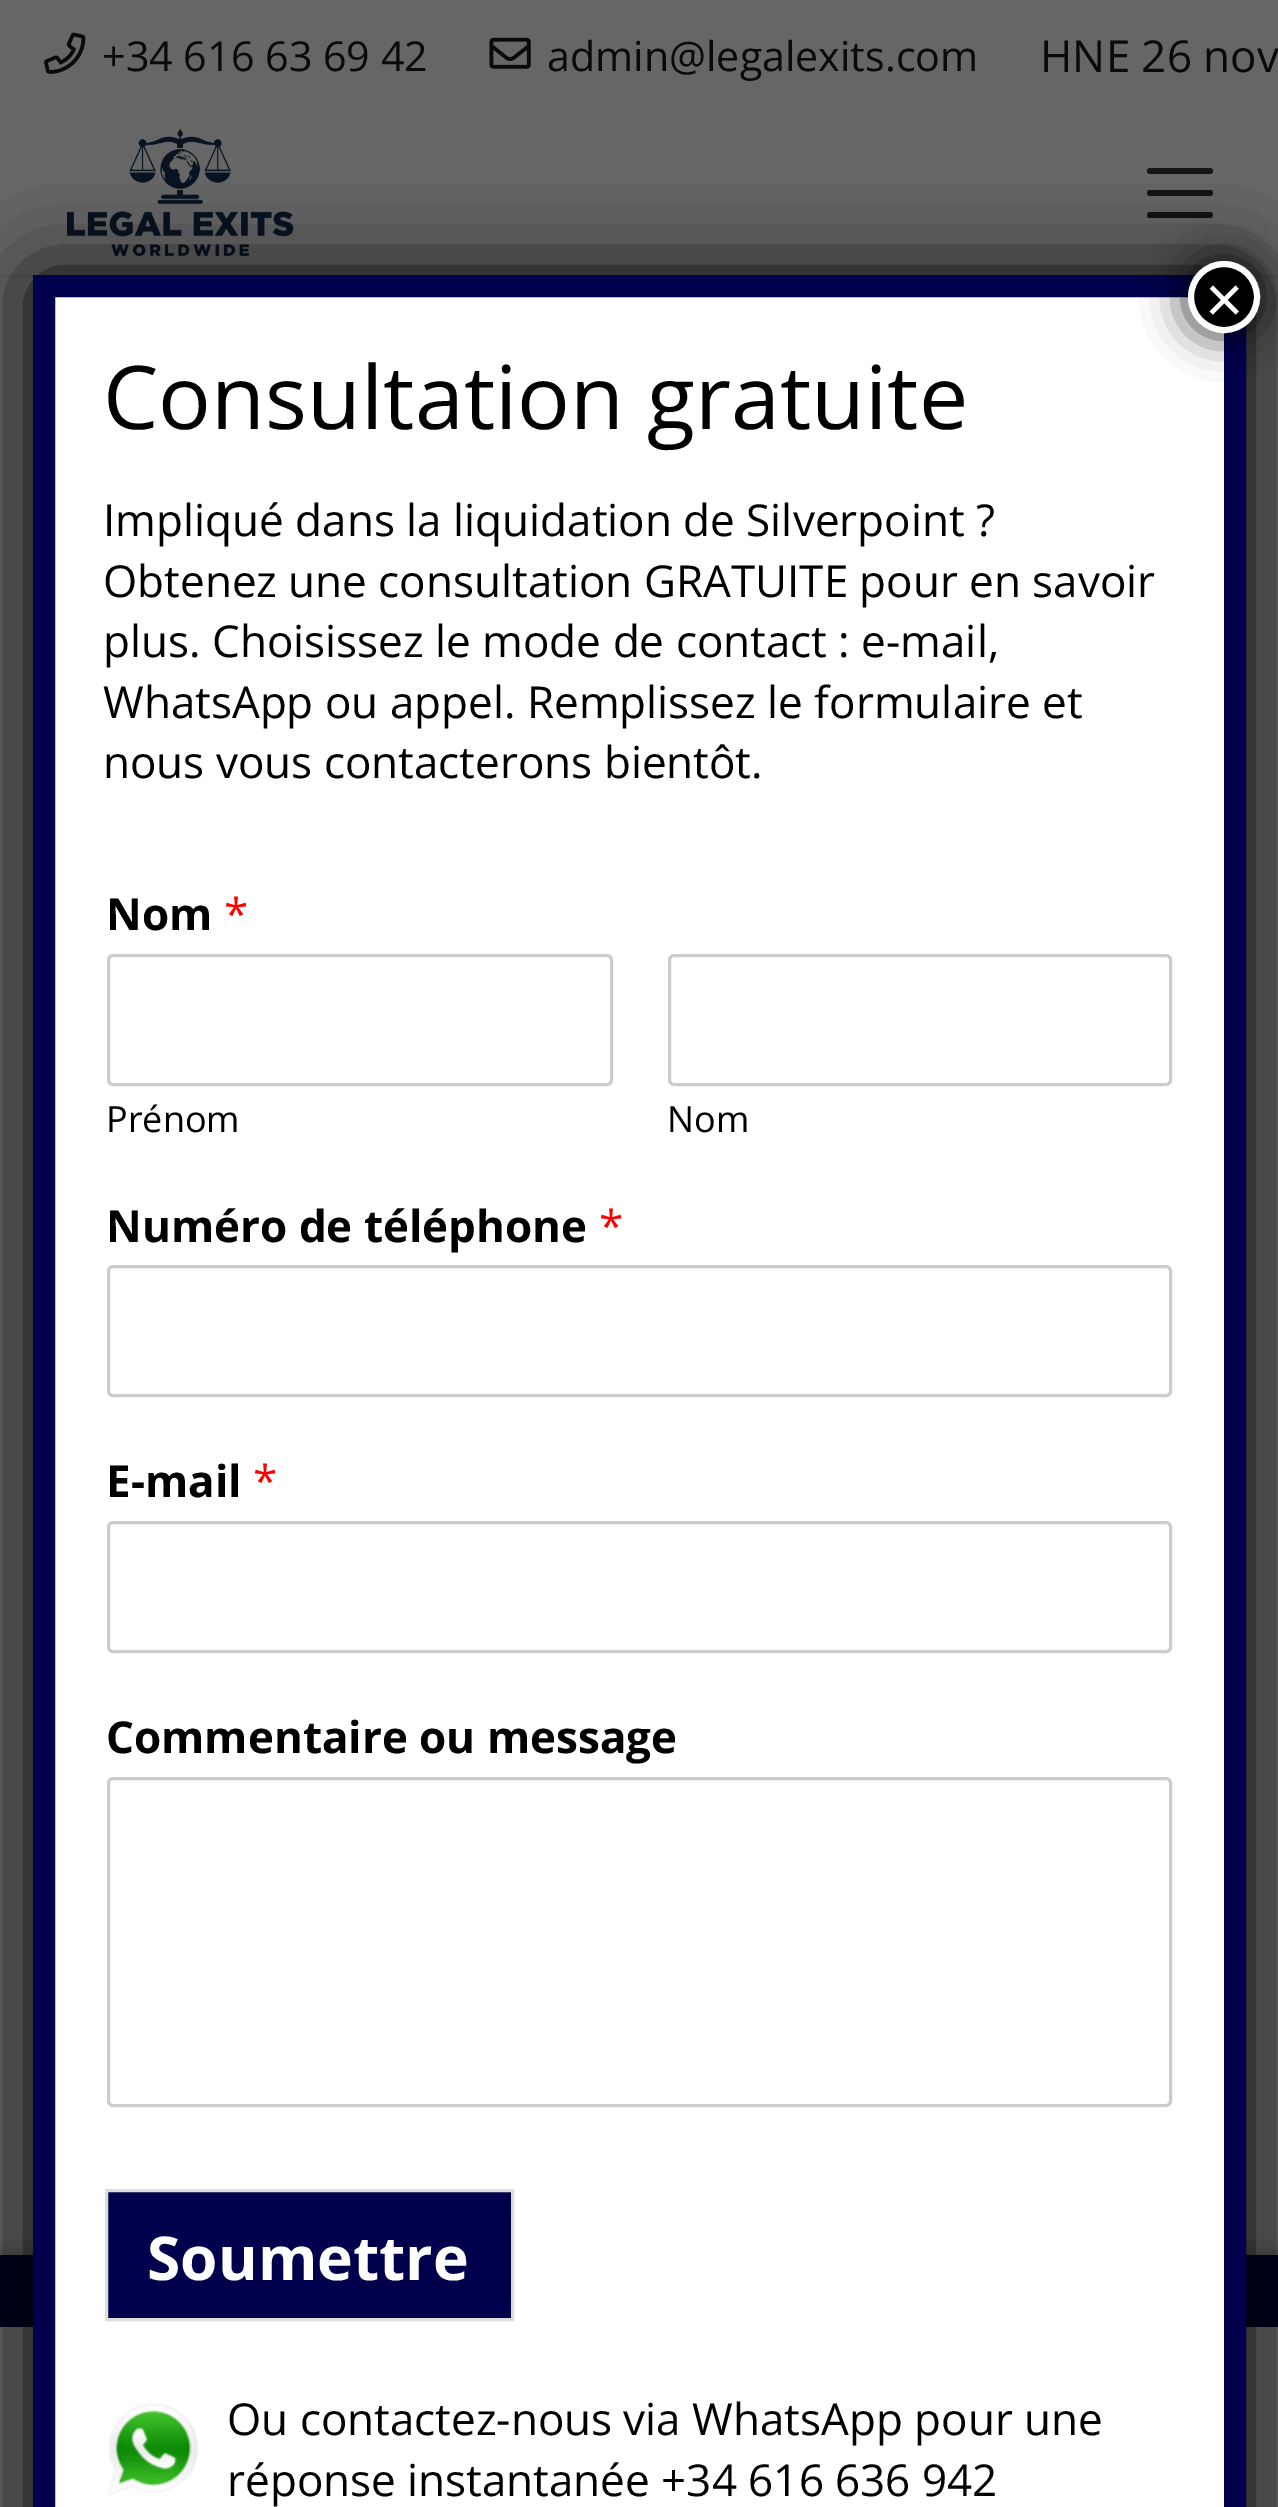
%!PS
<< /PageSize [1278 2507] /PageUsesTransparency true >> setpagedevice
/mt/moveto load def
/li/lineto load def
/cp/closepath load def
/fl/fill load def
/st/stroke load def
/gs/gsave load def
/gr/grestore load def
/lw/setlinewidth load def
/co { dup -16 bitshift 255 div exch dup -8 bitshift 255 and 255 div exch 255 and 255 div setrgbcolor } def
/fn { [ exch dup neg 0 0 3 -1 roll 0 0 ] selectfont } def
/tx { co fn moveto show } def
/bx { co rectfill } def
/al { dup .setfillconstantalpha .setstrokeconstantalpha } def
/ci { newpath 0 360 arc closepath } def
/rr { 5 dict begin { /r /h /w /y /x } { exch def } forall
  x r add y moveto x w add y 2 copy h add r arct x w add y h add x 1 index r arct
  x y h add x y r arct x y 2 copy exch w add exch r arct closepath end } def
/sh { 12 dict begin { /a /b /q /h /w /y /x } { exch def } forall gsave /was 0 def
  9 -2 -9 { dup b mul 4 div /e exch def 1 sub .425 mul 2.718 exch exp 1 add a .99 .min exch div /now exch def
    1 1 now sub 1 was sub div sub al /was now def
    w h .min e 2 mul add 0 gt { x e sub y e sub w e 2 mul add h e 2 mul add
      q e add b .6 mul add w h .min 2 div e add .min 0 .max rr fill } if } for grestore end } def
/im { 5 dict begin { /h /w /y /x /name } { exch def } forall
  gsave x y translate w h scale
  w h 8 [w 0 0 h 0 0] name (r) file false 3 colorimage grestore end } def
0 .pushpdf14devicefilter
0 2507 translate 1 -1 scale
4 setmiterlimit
0 0 1278 2507 16#666666 bx
(media/1.raw) 44 32 42 42 im
(media/2.raw) 489 37 42 32 im
16#5E5E5E co
0 275 mt 0 278 li 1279 278 li 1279 113 li 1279 275 li cp fl
(media/3.raw) 67 128 227 129 im
16#141414 co
1147 190 66 6 3 rr fl
1147 168 66 6 3 rr fl
1147 212 66 6 3 rr fl
16#000000 co
0 2250 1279 253 0 7 .2 sh
0 2255 1278 72 16#00001F bx
16#000000 co
0 2313 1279 181 0 20.5 .15 sh
0 2327 1278 180 16#666666 bx
16#020202 co
33 275 1213 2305 8 41 1 sh
55 297 1169 2210 16#FFFFFF bx
16#00004D co
22 lw
44 286 mt 1235 286 li 1235 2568.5 li 44 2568.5 li cp st
16#020202 co
1185 259 77 77 38.5 20.5 .75 sh
16#000000 co
1224 297 33 ci gs fl gr
16#FFFFFF co
6 lw
st
16#CCCCCC co
3 lw
108.5 955.5 503 129 4.5 rr st
669.5 955.5 501 129 4.5 rr st
108.5 1266.5 1062 129 4.5 rr st
108.5 1522.5 1062 129 4.5 rr st
108.5 1778.5 1062 327 4.5 rr st
16#00004D co
106.5 2190.5 mt 512.5 2190.5 li 512.5 2319.5 li 106.5 2319.5 li cp gs fl gr
16#DDDDDD co
st
(media/4.raw) 107 2403 92 92 im
(+34 616 63 69 42) 102 71 /OpenSans-Regular 41.25 16#0A0A0A tx
(admin@legalexits.com) 547 71 /OpenSans-Regular 41.25 16#0A0A0A tx
(HNE 26 nov) 1040 72 /OpenSans-Regular 44 16#0A0A0A tx
(×) 1205 322 /LiberationSans-Regular 66 16#FFFFFF tx
(Consultation gratuite) 103 429 /OpenSans-Regular 88 16#000000 tx
(Impliqué dans la liquidation de Silverpoint ?) 103 536 /OpenSans-Regular 44 16#000000 tx
(Obtenez une consultation GRATUITE pour en savoir) 103 597 /OpenSans-Regular 44 16#000000 tx
(plus. Choisissez le mode de contact : e-mail,) 103 657 /OpenSans-Regular 44 16#000000 tx
(WhatsApp ou appel. Remplissez le formulaire et) 103 718 /OpenSans-Regular 44 16#000000 tx
(nous vous contacterons bientôt.) 103 778 /OpenSans-Regular 44 16#000000 tx
(Nom) 106 930 /OpenSans-Bold 44 16#000000 tx
(*) 224 930 /OpenSans-Regular 44 16#FF0000 tx
(Prénom) 106 1132 /OpenSans-Regular 36 16#000000 tx
(Nom) 667 1132 /OpenSans-Regular 36 16#000000 tx
(Numéro de téléphone) 106 1242 /OpenSans-Bold 44 16#000000 tx
(*) 599 1242 /OpenSans-Regular 44 16#FF0000 tx
(E-mail) 106 1497 /OpenSans-Bold 44 16#000000 tx
(*) 253 1497 /OpenSans-Regular 44 16#FF0000 tx
(Commentaire ou message) 106 1753 /OpenSans-Bold 44 16#000000 tx
(Soumettre) 147 2280 /OpenSans-Bold 60.5 16#FFFFFF tx
(Ou contactez-nous via WhatsApp pour une) 227 2435 /OpenSans-Regular 44 16#000000 tx
(réponse instantanée +34 616 636 942) 227 2496 /OpenSans-Regular 44 16#000000 tx
.poppdf14devicefilter showpage
